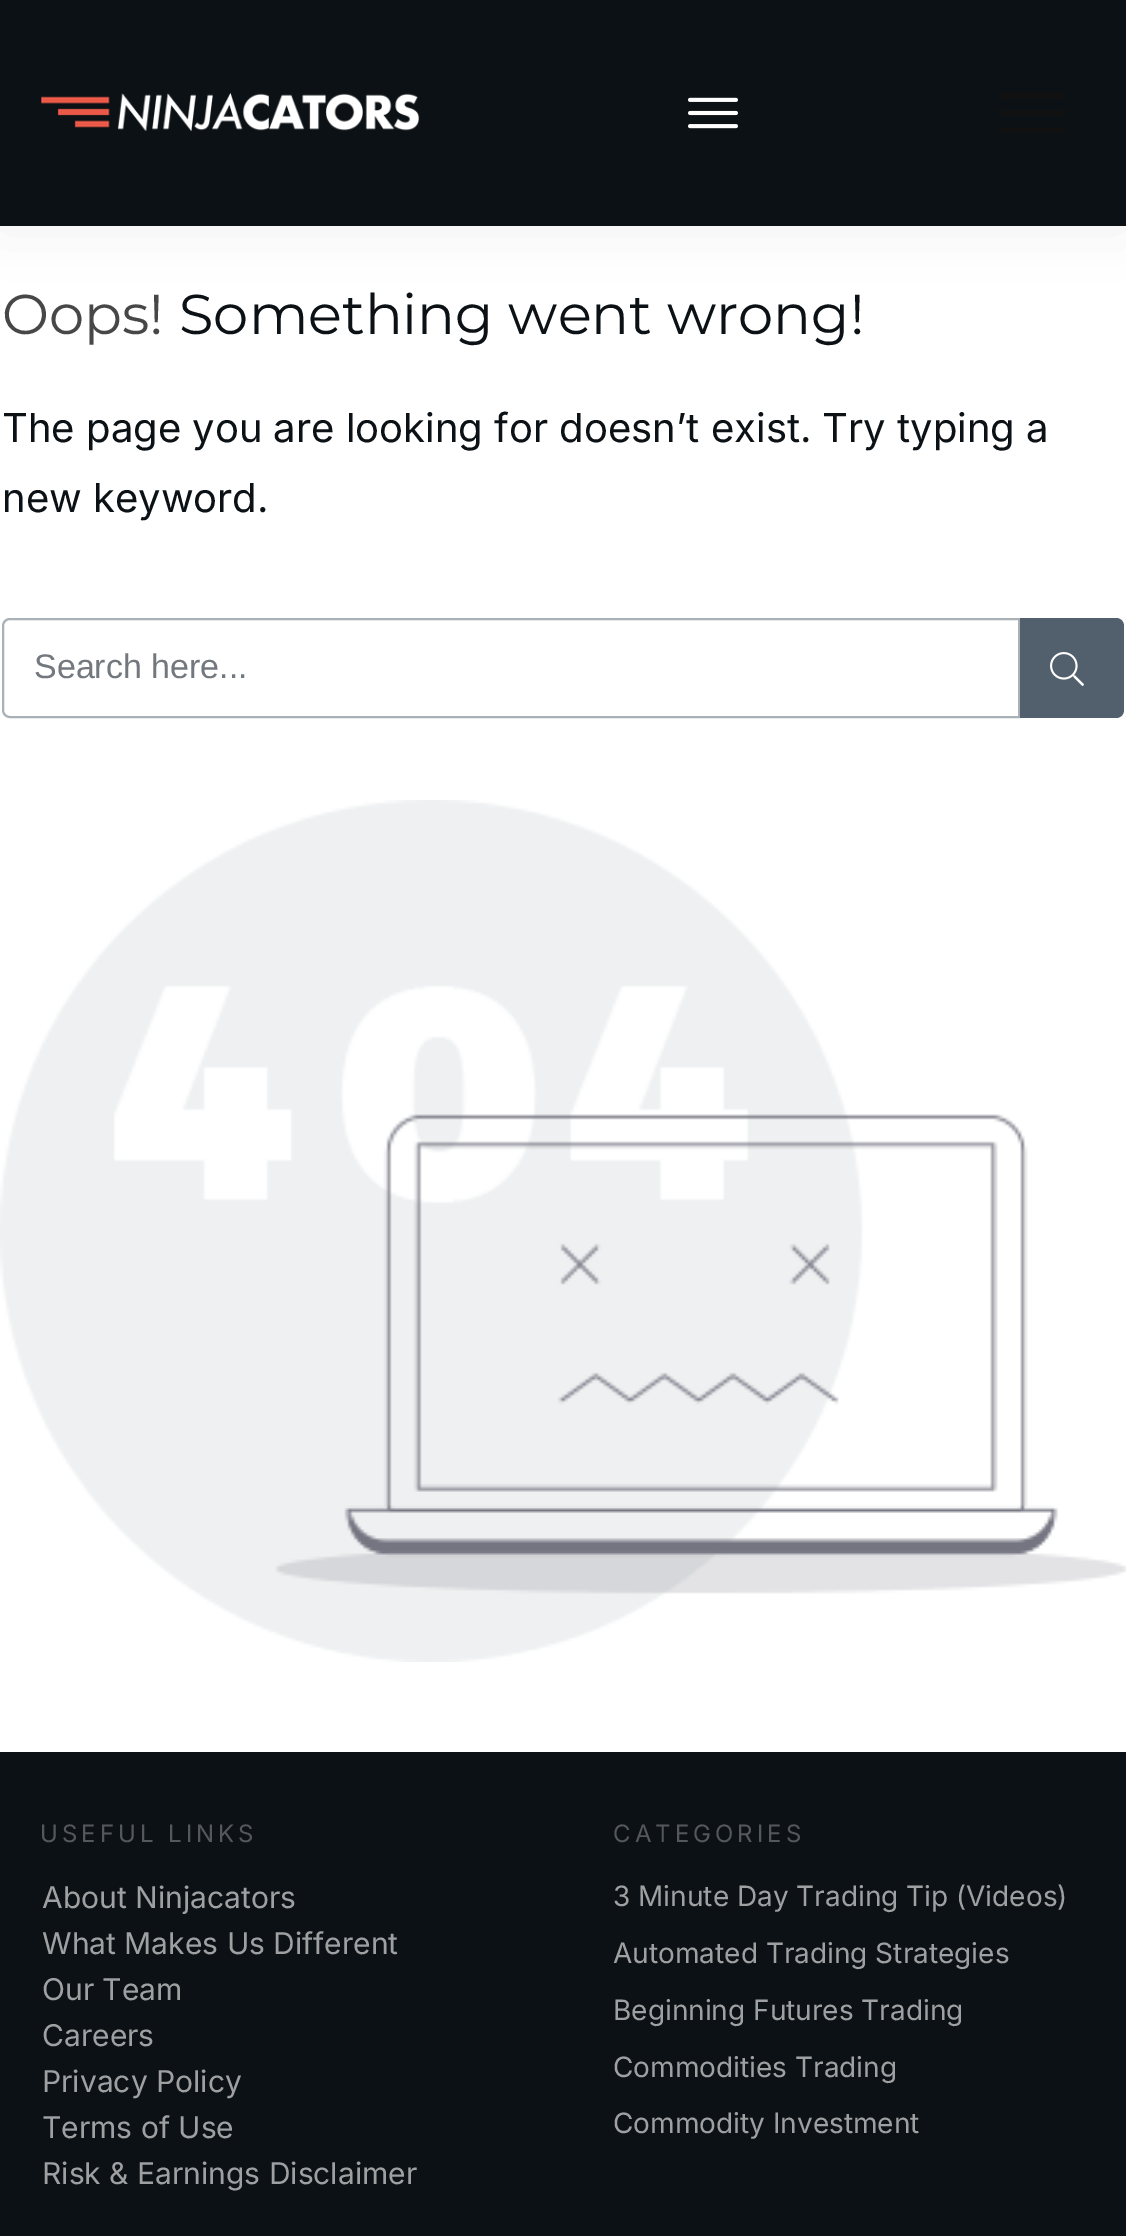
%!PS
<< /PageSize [1126 2236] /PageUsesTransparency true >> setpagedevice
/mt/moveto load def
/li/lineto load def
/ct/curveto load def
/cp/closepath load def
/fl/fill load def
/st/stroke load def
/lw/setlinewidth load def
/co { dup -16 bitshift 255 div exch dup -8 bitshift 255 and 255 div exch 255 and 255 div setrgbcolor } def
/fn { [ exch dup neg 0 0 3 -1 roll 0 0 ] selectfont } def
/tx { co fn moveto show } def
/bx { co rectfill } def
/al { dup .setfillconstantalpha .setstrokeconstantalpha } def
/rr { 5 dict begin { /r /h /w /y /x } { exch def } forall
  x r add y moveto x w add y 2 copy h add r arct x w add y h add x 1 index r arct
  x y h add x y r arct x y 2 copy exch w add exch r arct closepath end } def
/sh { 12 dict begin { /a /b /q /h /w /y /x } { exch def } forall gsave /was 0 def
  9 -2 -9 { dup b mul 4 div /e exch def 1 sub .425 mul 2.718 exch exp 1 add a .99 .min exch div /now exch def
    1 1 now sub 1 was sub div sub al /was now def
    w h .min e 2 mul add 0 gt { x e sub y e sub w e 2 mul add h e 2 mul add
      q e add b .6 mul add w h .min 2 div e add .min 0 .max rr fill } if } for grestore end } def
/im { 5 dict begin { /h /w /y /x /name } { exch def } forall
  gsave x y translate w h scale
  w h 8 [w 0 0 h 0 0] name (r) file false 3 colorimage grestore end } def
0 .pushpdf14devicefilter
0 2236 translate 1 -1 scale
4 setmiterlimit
0 0 1126 2236 16#FFFFFF bx
16#000000 co
0 4 1126 226 0 30 .05 sh
0 0 1126 226 16#0C1115 bx
(media/1.raw) 41 93 379 39 im
(media/2.raw) 688 97 50 32 im
(media/3.raw) 1000 93 66 40 im
16#A9B0B6 co
2 lw
10 619 mt 1019 619 li 1019 717 li 10 717 li 6 717 3 714 3 710 ct 3 626 li 3 622 6 619 10 619 ct cp st
16#52606D co
1020 618 mt 1116 618 li 1120.5 618 1124 621.5 1124 626 ct 1124 710 li 1124 714.5 1120.5 718 1116 718 ct 1020 718 li cp fl
(media/4.raw) 1050 652 34 34 im
(media/5.raw) 0 800 1126 862 im
0 1752 1126 484 16#0C1115 bx
(Oops!) 2 334 /Montserrat-Regular 56 16#474747 tx
(Something went wrong!) 179 334 /Montserrat-Regular 56 16#0C1115 tx
(The page you are looking for doesn’t exist. Try typing a) 2 442 /Inter-Regular 40 16#0C1115 tx
(new keyword.) 2 512 /Inter-Regular 40 16#0C1115 tx
(Search here...) 34 678 /LiberationSans-Regular 34 16#73787F tx
/Inter-Regular 24 fn
16#55585B co
40 1842 mt 4 0 (USEFUL LINKS) ashow
(About Ninjacators) 42 1908 /Inter-Regular 30 16#9EA0A1 tx
(What Makes Us Different) 42 1954 /Inter-Regular 30 16#9EA0A1 tx
(Our Team) 42 2000 /Inter-Regular 30 16#9EA0A1 tx
(Careers) 42 2046 /Inter-Regular 30 16#9EA0A1 tx
(Privacy Policy) 42 2092 /Inter-Regular 30 16#9EA0A1 tx
(Terms of Use) 42 2138 /Inter-Regular 30 16#9EA0A1 tx
(Risk & Earnings Disclaimer) 42 2184 /Inter-Regular 30 16#9EA0A1 tx
/Inter-Regular 24 fn
16#55585B co
613 1842 mt 4 0 (CATEGORIES) ashow
(3 Minute Day Trading Tip \(Videos\)) 613 1906 /Inter-Regular 28 16#9EA0A1 tx
(Automated Trading Strategies) 613 1963 /Inter-Regular 28 16#9EA0A1 tx
(Beginning Futures Trading) 613 2020 /Inter-Regular 28 16#9EA0A1 tx
(Commodities Trading) 613 2077 /Inter-Regular 28 16#9EA0A1 tx
(Commodity Investment) 613 2133 /Inter-Regular 28 16#9EA0A1 tx
.poppdf14devicefilter showpage
